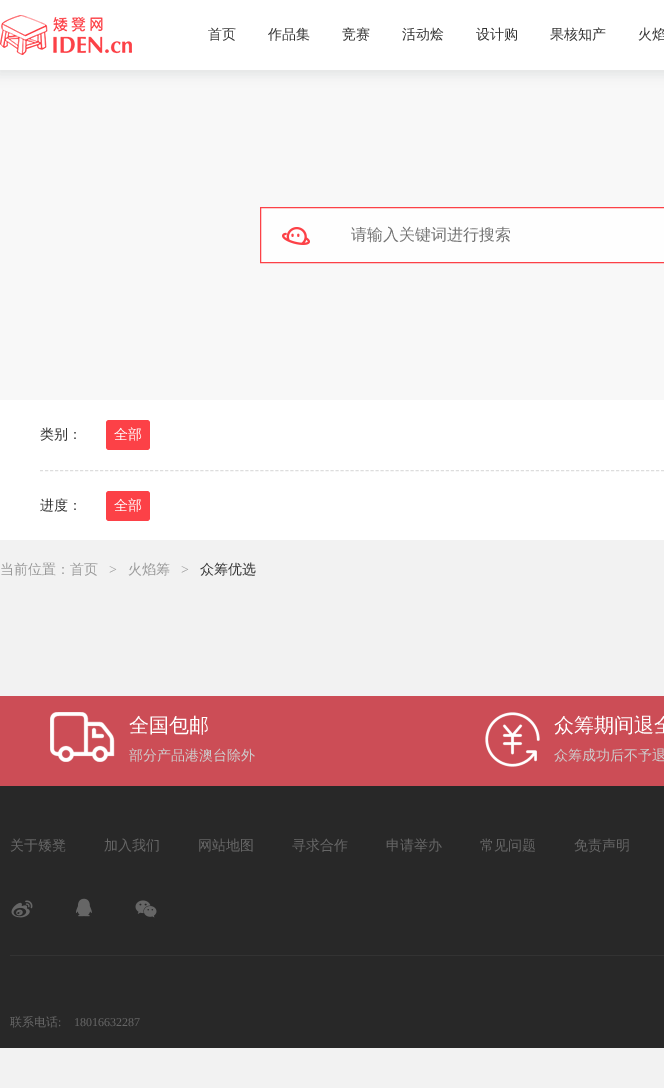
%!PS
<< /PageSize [664 1088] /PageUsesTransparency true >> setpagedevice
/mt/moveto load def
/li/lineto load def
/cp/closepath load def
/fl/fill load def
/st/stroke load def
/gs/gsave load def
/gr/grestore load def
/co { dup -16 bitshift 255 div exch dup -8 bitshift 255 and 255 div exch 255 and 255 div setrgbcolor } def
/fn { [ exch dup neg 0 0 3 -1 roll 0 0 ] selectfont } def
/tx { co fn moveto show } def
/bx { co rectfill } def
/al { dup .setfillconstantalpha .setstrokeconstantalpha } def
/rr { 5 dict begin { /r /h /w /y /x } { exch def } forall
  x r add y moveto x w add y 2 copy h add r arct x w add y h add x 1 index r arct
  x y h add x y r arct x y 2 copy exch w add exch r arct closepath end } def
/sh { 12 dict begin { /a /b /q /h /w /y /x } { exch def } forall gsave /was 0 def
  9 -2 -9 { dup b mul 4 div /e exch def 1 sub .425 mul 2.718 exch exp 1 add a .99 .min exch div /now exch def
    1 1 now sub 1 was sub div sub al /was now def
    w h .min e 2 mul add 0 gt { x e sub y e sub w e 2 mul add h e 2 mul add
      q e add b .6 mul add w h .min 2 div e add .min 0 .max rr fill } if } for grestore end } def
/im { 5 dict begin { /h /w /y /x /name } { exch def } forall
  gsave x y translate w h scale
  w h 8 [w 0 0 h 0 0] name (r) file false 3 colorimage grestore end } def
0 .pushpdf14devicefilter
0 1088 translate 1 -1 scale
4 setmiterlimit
0 0 664 1088 16#F2F2F2 bx
0 70 664 330 16#F8F8F8 bx
16#0B1C36 co
-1 2 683 72 0 6 .1 sh
0 0 664 70 16#FFFFFF bx
(media/1.raw) 0 15 132 40 im
16#FEFEFE co
260.5 207.5 mt 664.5 207.5 li 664.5 262.5 li 260.5 262.5 li cp gs fl gr
16#FC4147 co
st
(media/2.raw) 282 227 28 18 im
0 400 664 140 16#FFFFFF bx
16#FC4147 co
106 420 44 30 3 rr fl
16#DDDDDD co
[3 2.01] 0 setdash
40 470.5 mt 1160 470.5 li st
16#FC4147 co
106 491 44 30 3 rr fl
0 696 664 90 16#CC4D56 bx
(media/3.raw) 50 712 65 50 im
(media/4.raw) 485 712 55 55 im
0 786 664 262 16#282828 bx
10 955 654 1 16#333333 bx
(media/5.raw) 11 900 22 18 im
(media/6.raw) 76 898 16 19 im
(media/7.raw) 135 900 22 18 im
(首页) 208 39 /WenQuanYiZenHei-Medium 14 16#333333 tx
(作品集) 268 39 /WenQuanYiZenHei-Medium 14 16#333333 tx
(竞赛) 342 39 /WenQuanYiZenHei-Medium 14 16#333333 tx
(活动烩) 402 39 /WenQuanYiZenHei-Medium 14 16#333333 tx
(设计购) 476 39 /WenQuanYiZenHei-Medium 14 16#333333 tx
(果核知产) 550 39 /WenQuanYiZenHei-Medium 14 16#333333 tx
(火焰) 638 39 /WenQuanYiZenHei-Medium 14 16#333333 tx
(请输入关键词进行搜索) 351 240 /WenQuanYiZenHei-Medium 16 16#757575 tx
(类别：) 40 439 /WenQuanYiZenHei-Medium 14 16#333333 tx
(全部) 114 439 /WenQuanYiZenHei-Medium 14 16#FFFFFF tx
(进度：) 40 510 /WenQuanYiZenHei-Medium 14 16#333333 tx
(全部) 114 510 /WenQuanYiZenHei-Medium 14 16#FFFFFF tx
(当前位置：首页) 0 574 /WenQuanYiZenHei-Medium 14 16#999999 tx
(>) 109 574 /LiberationSerif-Regular 14 16#999999 tx
(火焰筹) 128 574 /WenQuanYiZenHei-Medium 14 16#999999 tx
(>) 181 574 /LiberationSerif-Regular 14 16#999999 tx
(众筹优选) 200 574 /WenQuanYiZenHei-Medium 14 16#333333 tx
(全国包邮) 129 732 /WenQuanYiZenHei-Medium 20 16#FFFFFF tx
(部分产品港澳台除外) 129 760 /WenQuanYiZenHei-Medium 14 16#CDCDCD tx
(众筹期间退全) 554 732 /WenQuanYiZenHei-Medium 20 16#FFFFFF tx
(众筹成功后不予退) 554 760 /WenQuanYiZenHei-Medium 14 16#CDCDCD tx
(关于矮凳) 10 850 /WenQuanYiZenHei-Medium 14 16#666666 tx
(加入我们) 104 850 /WenQuanYiZenHei-Medium 14 16#666666 tx
(网站地图) 198 850 /WenQuanYiZenHei-Medium 14 16#666666 tx
(寻求合作) 292 850 /WenQuanYiZenHei-Medium 14 16#666666 tx
(申请举办) 386 850 /WenQuanYiZenHei-Medium 14 16#666666 tx
(常见问题) 480 850 /WenQuanYiZenHei-Medium 14 16#666666 tx
(免责声明) 574 850 /WenQuanYiZenHei-Medium 14 16#666666 tx
(联系电话) 10 1026 /WenQuanYiZenHei-Medium 12 16#666666 tx
(:) 58 1026 /LiberationSerif-Regular 12 16#666666 tx
(18016632287) 74 1026 /LiberationSerif-Regular 12 16#666666 tx
.poppdf14devicefilter showpage
